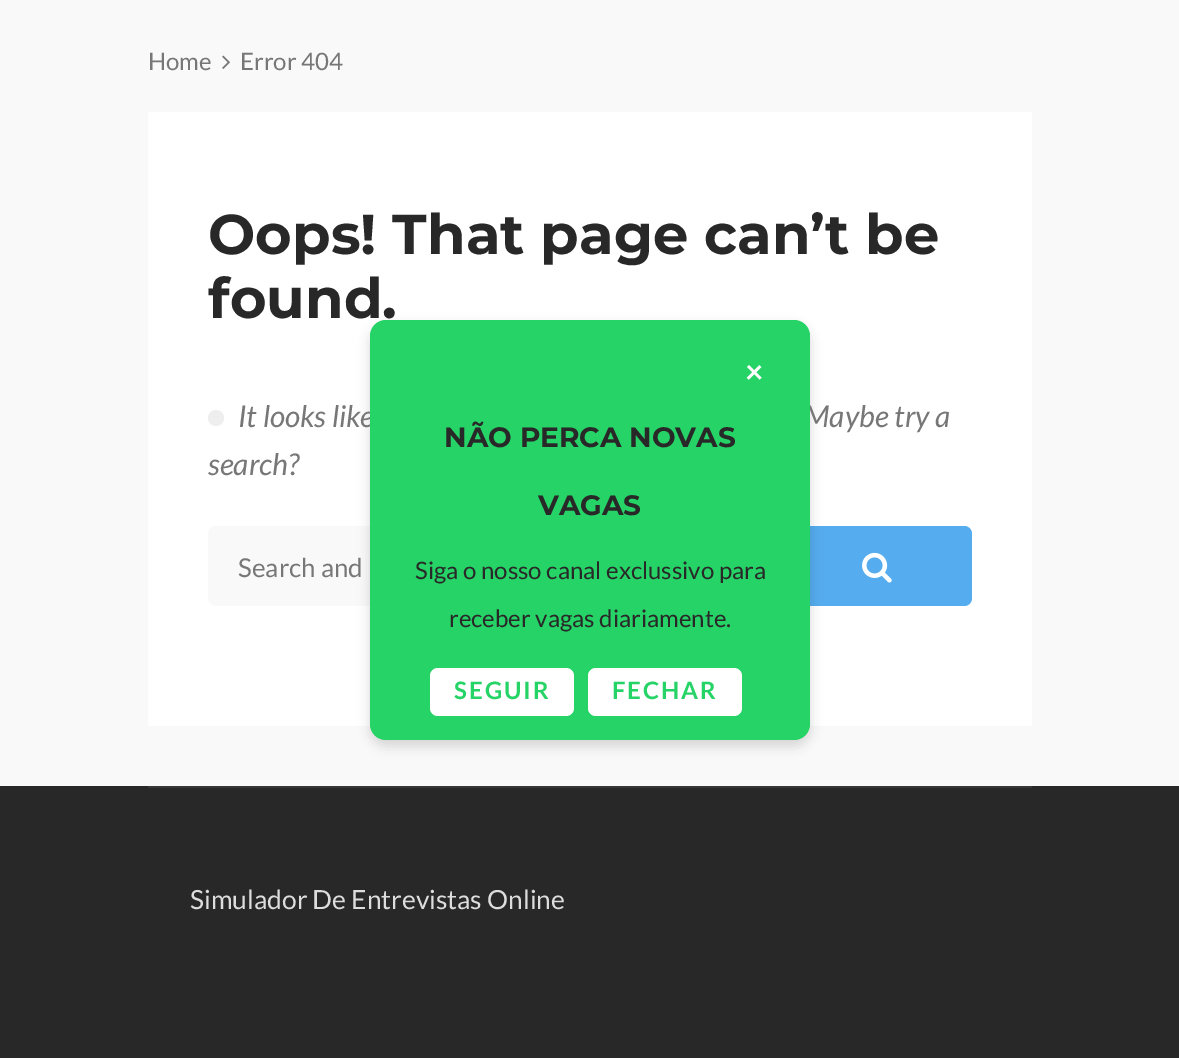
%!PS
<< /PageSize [1179 1058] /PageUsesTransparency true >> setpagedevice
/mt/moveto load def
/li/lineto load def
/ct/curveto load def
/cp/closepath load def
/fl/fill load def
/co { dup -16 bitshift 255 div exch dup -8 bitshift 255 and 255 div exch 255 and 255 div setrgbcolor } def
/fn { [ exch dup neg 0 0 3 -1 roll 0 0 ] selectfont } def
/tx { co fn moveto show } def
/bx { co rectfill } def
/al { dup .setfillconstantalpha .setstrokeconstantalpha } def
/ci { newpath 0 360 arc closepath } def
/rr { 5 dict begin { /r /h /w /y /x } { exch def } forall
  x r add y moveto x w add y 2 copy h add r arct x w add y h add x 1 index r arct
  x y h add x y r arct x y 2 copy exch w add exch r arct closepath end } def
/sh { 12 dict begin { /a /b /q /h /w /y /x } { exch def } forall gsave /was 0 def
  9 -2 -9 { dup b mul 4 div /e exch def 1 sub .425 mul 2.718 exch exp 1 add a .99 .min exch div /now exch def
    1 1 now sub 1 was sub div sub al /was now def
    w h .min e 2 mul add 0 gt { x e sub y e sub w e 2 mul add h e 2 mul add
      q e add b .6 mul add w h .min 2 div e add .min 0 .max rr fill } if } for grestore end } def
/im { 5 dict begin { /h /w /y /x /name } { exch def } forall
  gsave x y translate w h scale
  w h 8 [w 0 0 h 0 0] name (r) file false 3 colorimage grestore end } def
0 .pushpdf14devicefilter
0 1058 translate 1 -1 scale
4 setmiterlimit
0 0 1179 1058 16#F9F9F9 bx
(media/1.raw) 222 55 8 14 im
148 112 884 614 16#FFFFFF bx
16#EEEEEE co
216 418 8 ci fl
16#F9F9F9 co
216 526 mt 782 526 li 782 606 li 216 606 li 211.5 606 208 602.5 208 598 ct 208 534 li 208 529.5 211.5 526 216 526 ct cp fl
16#55ACEE co
782 526 mt 964 526 li 968.5 526 972 529.5 972 534 ct 972 598 li 972 602.5 968.5 606 964 606 ct 782 606 li cp fl
(media/2.raw) 862 552 30 31 im
0 786 1179 272 16#282828 bx
148 786 884 2 16#373737 bx
16#000000 co
370 326 440 420 16 6 .15 sh
(Home) 148 70 /Lato-Regular 24 16#777777 tx
(Error 404) 240 70 /Lato-Regular 24 16#777777 tx
(Oops! That page can’t be) 208 254 /Montserrat-Bold 56 16#282828 tx
(found.) 208 318 /Montserrat-Bold 56 16#282828 tx
(It looks like) 238 427 /Lato-Italic 30 16#777777 tx
(Maybe try a) 804 427 /Lato-Italic 30 16#777777 tx
(search?) 208 475 /Lato-Italic 30 16#777777 tx
(Search and) 238 577 /Lato-Regular 26 16#777777 tx
(Simulador De Entrevistas Online) 190 909 /Lato-Regular 26.4 16#DDDDDD tx
16#25D366 co
370 320 440 420 16 rr fl
/Lato-Bold 32 fn
16#FFFFFF co
745 383 mt 2 0 (×) ashow
(NÃO PERCA NOVAS) 444 447 /Montserrat-Bold 28 16#282828 tx
(VAGAS) 538 515 /Montserrat-Bold 28 16#282828 tx
(Siga o nosso canal exclussivo para) 415 579 /Lato-Regular 24 16#282828 tx
(receber vagas diariamente.) 449 627 /Lato-Regular 24 16#282828 tx
16#FFFFFF co
430 668 144 48 8 rr fl
/Lato-Bold 24 fn
16#25D366 co
454 699 mt 2 0 (SEGUIR) ashow
16#FFFFFF co
588 668 154 48 8 rr fl
16#25D366 co
612 699 mt 2 0 (FECHAR) ashow
.poppdf14devicefilter showpage
